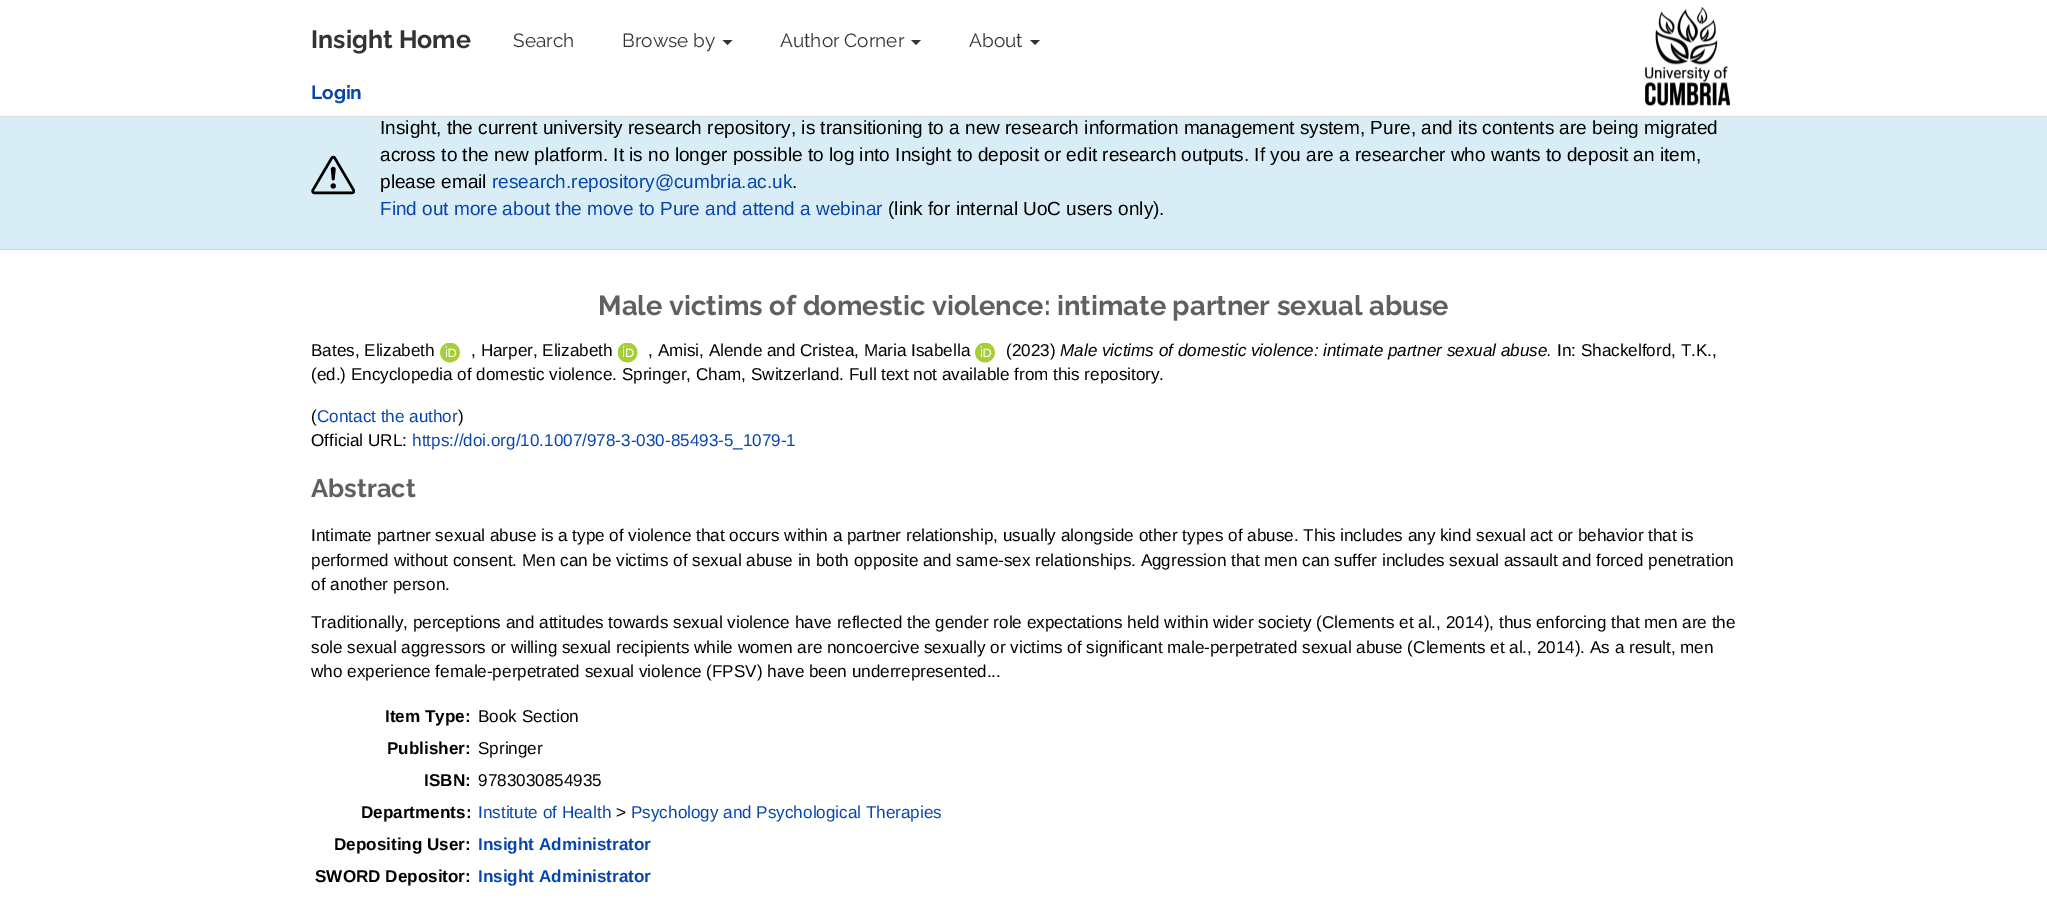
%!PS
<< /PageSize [2047 898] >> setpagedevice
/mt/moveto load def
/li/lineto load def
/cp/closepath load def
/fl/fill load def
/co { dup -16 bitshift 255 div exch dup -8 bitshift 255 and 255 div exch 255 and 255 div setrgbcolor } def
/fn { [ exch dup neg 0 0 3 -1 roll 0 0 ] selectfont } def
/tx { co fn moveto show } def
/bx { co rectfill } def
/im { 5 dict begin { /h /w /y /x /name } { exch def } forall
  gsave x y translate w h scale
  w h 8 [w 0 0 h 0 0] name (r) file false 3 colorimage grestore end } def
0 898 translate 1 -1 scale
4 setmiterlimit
0 0 2047 898 16#FFFFFF bx
0 116 2047 1 16#DDDDDD bx
16#333333 co
722.5 40 mt 732.5 40 li 727.5 45 li cp fl
911 40 mt 921 40 li 916 45 li cp fl
1030 40 mt 1040 40 li 1035 45 li cp fl
(media/1.raw) 1645 7 85 100 im
0 117 2047 132 16#D9EDF7 bx
0 249 2047 1 16#D0D0D0 bx
(media/2.raw) 311 155 44 40 im
(media/3.raw) 440 343 20 20 im
(media/4.raw) 618 343 20 20 im
(media/3.raw) 975 343 20 20 im
(Insight Home) 311 48 /Raleway-Bold 25 16#333333 tx
(Search) 513 47 /Raleway-Regular 19 16#333333 tx
(Browse by) 622 47 /Raleway-Regular 19 16#333333 tx
(Author Corner) 780 47 /Raleway-Regular 19 16#333333 tx
(About) 969 47 /Raleway-Regular 19 16#333333 tx
(Login) 311 99 /Raleway-Bold 19 16#0645AD tx
(Insight, the current university research repository, is transitioning to a new research information management system, Pure, and its contents are being migrated) 380 134 /LiberationSans-Regular 19 16#000000 tx
(across to the new platform. It is no longer possible to log into Insight to deposit or edit research outputs. If you are a researcher who wants to deposit an item,) 380 161 /LiberationSans-Regular 19 16#000000 tx
(please email) 380 188 /LiberationSans-Regular 19 16#000000 tx
(research.repository@cumbria.ac.uk) 492 188 /LiberationSans-Regular 19 16#0645AD tx
(.) 792 188 /LiberationSans-Regular 19 16#000000 tx
(Find out more about the move to Pure and attend a webinar) 380 215 /LiberationSans-Regular 19 16#0645AD tx
(\(link for internal UoC users only\).) 888 215 /LiberationSans-Regular 19 16#000000 tx
(Male victims of domestic violence: intimate partner sexual abuse) 598 315 /Raleway-Bold 27.35 16#606060 tx
(Bates, Elizabeth) 311 356 /LiberationSans-Regular 17.1 16#000000 tx
(, Harper, Elizabeth) 471 356 /LiberationSans-Regular 17.1 16#000000 tx
(, Amisi, Alende and Cristea, Maria Isabella) 648 356 /LiberationSans-Regular 17.1 16#000000 tx
(\(2023\)) 1006 356 /LiberationSans-Regular 17.1 16#000000 tx
(Male victims of domestic violence: intimate partner sexual abuse.) 1060 356 /LiberationSans-Italic 17.1 16#000000 tx
(In: Shackelford, T.K.,) 1557 356 /LiberationSans-Regular 17.1 16#000000 tx
(\(ed.\) Encyclopedia of domestic violence. Springer, Cham, Switzerland. Full text not available from this repository.) 311 380 /LiberationSans-Regular 17.1 16#000000 tx
(\() 311 422 /LiberationSans-Regular 17.1 16#000000 tx
(Contact the author) 317 422 /LiberationSans-Regular 17.1 16#0645AD tx
(\)) 458 422 /LiberationSans-Regular 17.1 16#000000 tx
(Official URL:) 311 446 /LiberationSans-Regular 17.1 16#000000 tx
(https://doi.org/10.1007/978-3-030-85493-5_1079-1) 412 446 /LiberationSans-Regular 17.1 16#0645AD tx
(Abstract) 311 497 /Raleway-Bold 25.5 16#606060 tx
(Intimate partner sexual abuse is a type of violence that occurs within a partner relationship, usually alongside other types of abuse. This includes any kind sexual act or behavior that is) 311 541 /LiberationSans-Regular 17.1 16#000000 tx
(performed without consent. Men can be victims of sexual abuse in both opposite and same-sex relationships. Aggression that men can suffer includes sexual assault and forced penetration) 311 566 /LiberationSans-Regular 17.1 16#000000 tx
(of another person.) 311 590 /LiberationSans-Regular 17.1 16#000000 tx
(Traditionally, perceptions and attitudes towards sexual violence have reflected the gender role expectations held within wider society \(Clements et al., 2014\), thus enforcing that men are the) 311 628 /LiberationSans-Regular 17.1 16#000000 tx
(sole sexual aggressors or willing sexual recipients while women are noncoercive sexually or victims of significant male-perpetrated sexual abuse \(Clements et al., 2014\). As a result, men) 311 653 /LiberationSans-Regular 17.1 16#000000 tx
(who experience female-perpetrated sexual violence \(FPSV\) have been underrepresented...) 311 677 /LiberationSans-Regular 17.1 16#000000 tx
(Item Type:) 385 722 /LiberationSans-Bold 17.1 16#000000 tx
(Book Section) 478 722 /LiberationSans-Regular 17.1 16#000000 tx
(Publisher:) 387 754 /LiberationSans-Bold 17.1 16#000000 tx
(Springer) 478 754 /LiberationSans-Regular 17.1 16#000000 tx
(ISBN:) 424 786 /LiberationSans-Bold 17.1 16#000000 tx
(9783030854935) 478 786 /LiberationSans-Regular 17.1 16#000000 tx
(Departments:) 361 818 /LiberationSans-Bold 17.1 16#000000 tx
(Institute of Health) 478 818 /LiberationSans-Regular 17.1 16#0645AD tx
(>) 616 818 /LiberationSans-Regular 17.1 16#000000 tx
(Psychology and Psychological Therapies) 631 818 /LiberationSans-Regular 17.1 16#0645AD tx
(Depositing User:) 334 850 /LiberationSans-Bold 17.1 16#000000 tx
(Insight Administrator) 478 850 /LiberationSans-Bold 17.1 16#0645AD tx
(SWORD Depositor:) 315 882 /LiberationSans-Bold 17.1 16#000000 tx
(Insight Administrator) 478 882 /LiberationSans-Bold 17.1 16#0645AD tx
showpage
